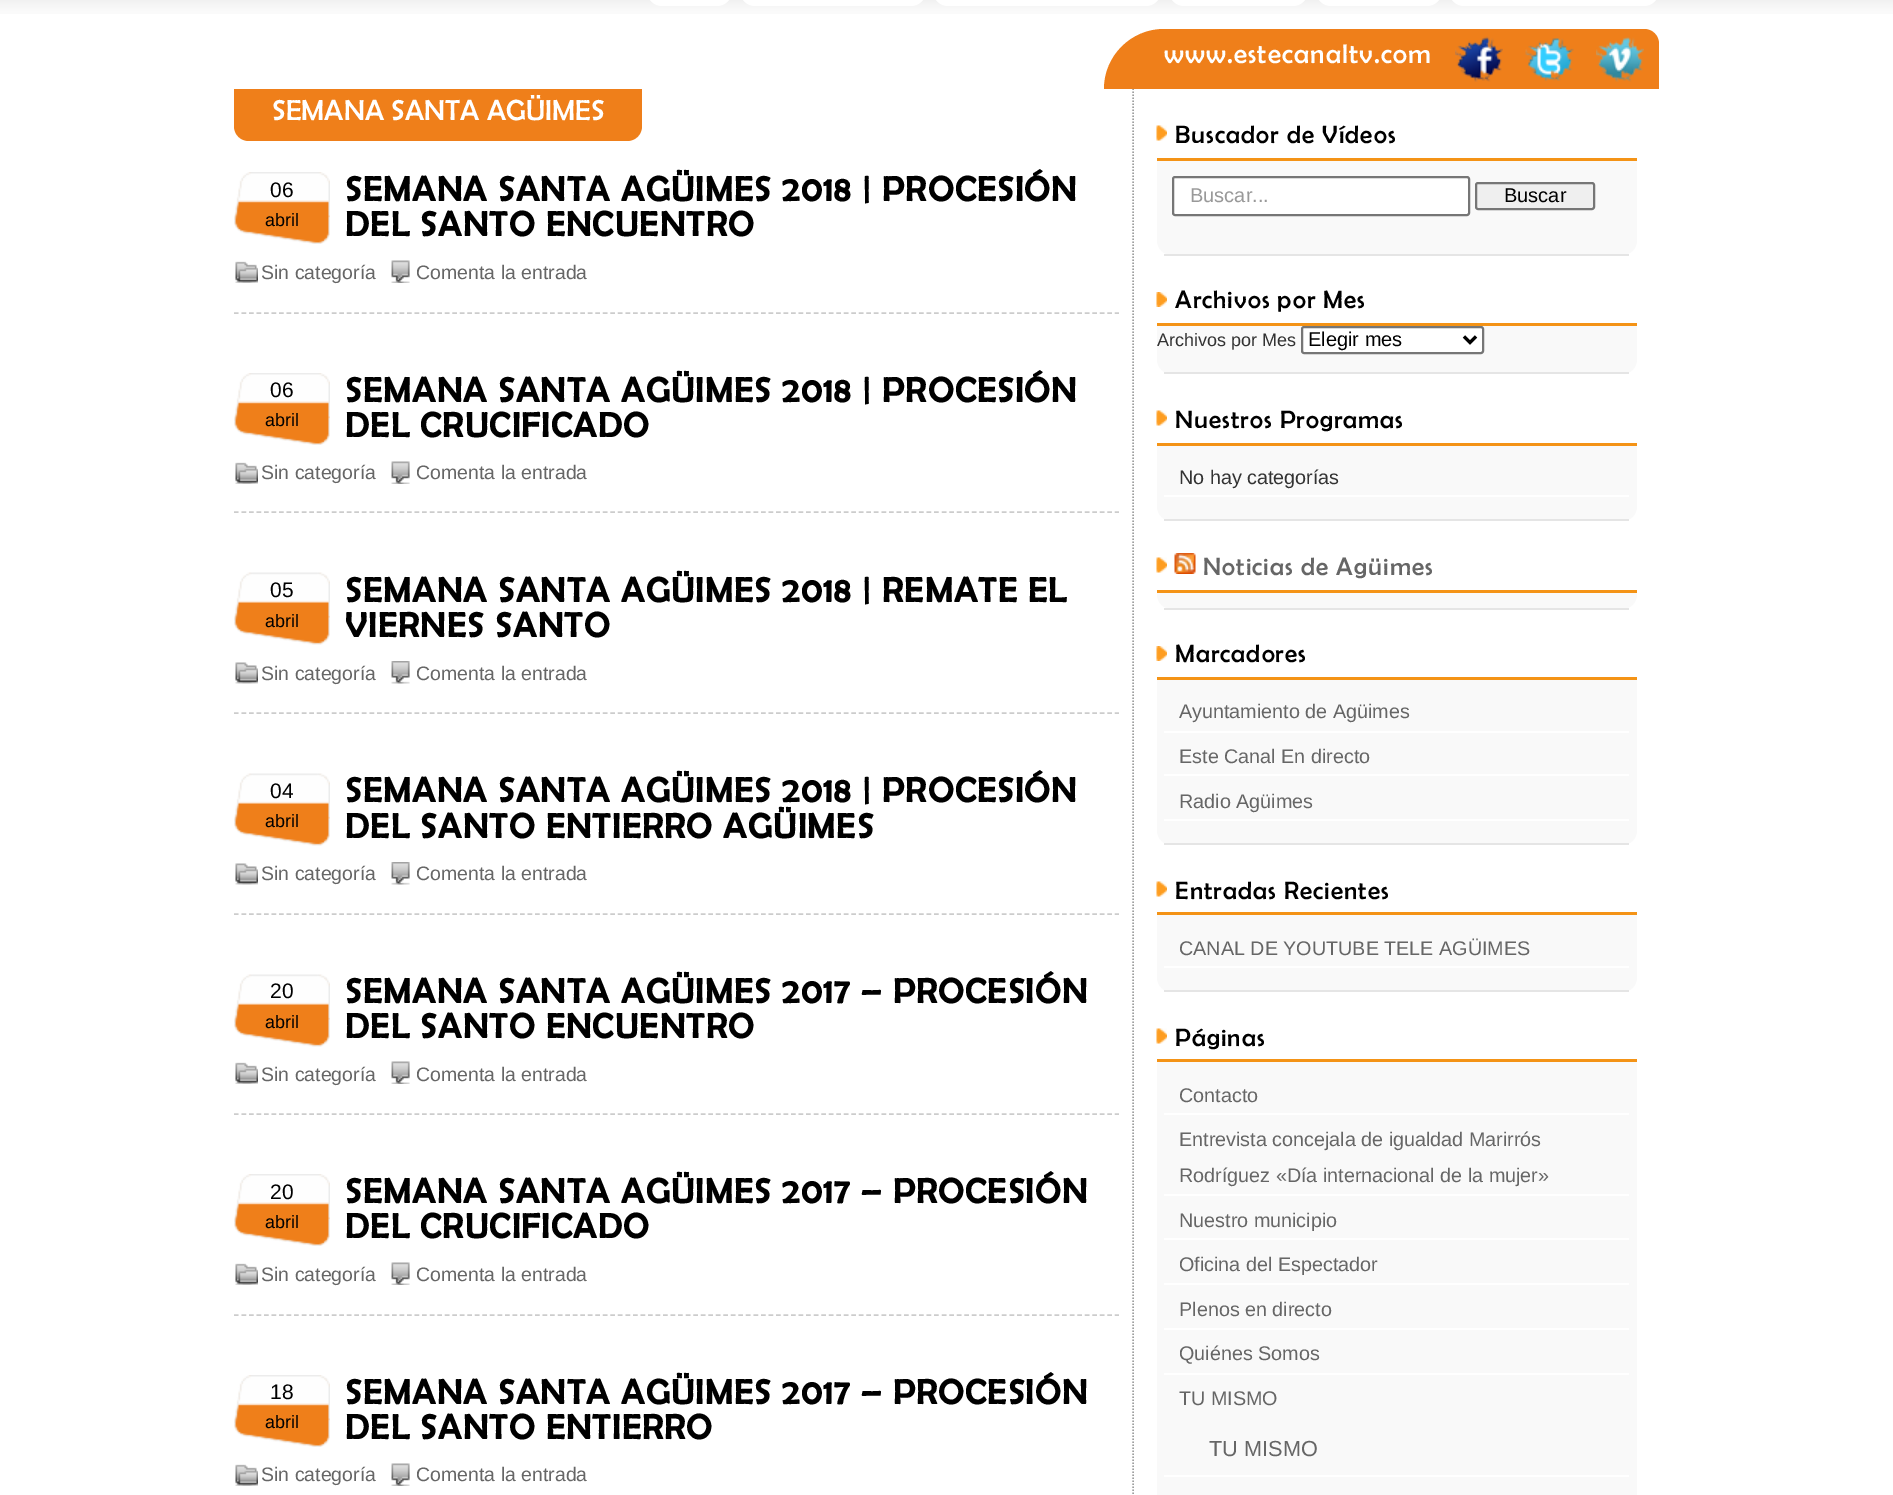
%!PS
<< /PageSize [1893 1495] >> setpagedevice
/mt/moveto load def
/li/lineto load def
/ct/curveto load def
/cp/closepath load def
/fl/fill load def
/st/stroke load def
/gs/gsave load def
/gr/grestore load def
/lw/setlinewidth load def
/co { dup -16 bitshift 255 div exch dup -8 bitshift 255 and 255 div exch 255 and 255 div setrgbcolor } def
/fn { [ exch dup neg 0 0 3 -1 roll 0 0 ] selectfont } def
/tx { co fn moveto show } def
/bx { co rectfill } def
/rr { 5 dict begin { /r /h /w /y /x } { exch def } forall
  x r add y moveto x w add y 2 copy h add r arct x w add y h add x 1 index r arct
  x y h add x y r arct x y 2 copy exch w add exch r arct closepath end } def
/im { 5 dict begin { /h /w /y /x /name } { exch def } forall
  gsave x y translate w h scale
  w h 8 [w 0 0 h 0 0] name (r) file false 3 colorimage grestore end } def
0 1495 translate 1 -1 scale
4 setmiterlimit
0 0 1893 1495 16#FFFFFF bx
(media/1.raw) 0 0 1893 14 im
647 -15 85 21 15 rr fl
740 -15 186 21 15 rr fl
933 -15 228 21 15 rr fl
1169 -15 139 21 15 rr fl
1316 -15 126 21 15 rr fl
1449 -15 210 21 15 rr fl
16#9D9E9E co
1.5 lw
[1.5 1.5] 0 setdash
1133 88.5 mt 1133 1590 li st
16#EF7F1A co
1164 29 mt 1644 29 li 1652.5 29 1659 35.5 1659 44 ct 1659 89 li 1104 89 li 1104 56 1131 29 1164 29 ct cp fl
(media/2.raw) 1455 36 48 46 im
(media/3.raw) 1525 38 49 43 im
(media/4.raw) 1596 37 48 45 im
234 89 mt 642 89 li 642 126 li 642 134.5 635.5 141 627 141 ct 249 141 li 240.5 141 234 134.5 234 126 ct cp fl
(media/5.raw) 235 261 23 22 im
(media/6.raw) 391 260 19 23 im
(media/7.raw) 234 172 96 72 im
16#CCCCCC co
[4.5 3.03] 0 setdash
234 313 mt 1119 313 li st
(media/5.raw) 235 462 23 22 im
(media/6.raw) 391 461 19 23 im
(media/7.raw) 234 373 96 72 im
234 512 mt 1119 512 li st
(media/8.raw) 235 662 23 22 im
(media/9.raw) 391 661 19 23 im
(media/10.raw) 234 572 96 73 im
234 713 mt 1119 713 li st
(media/8.raw) 235 863 23 22 im
(media/9.raw) 391 862 19 23 im
(media/10.raw) 234 773 96 73 im
234 914 mt 1119 914 li st
(media/5.raw) 235 1062 23 22 im
(media/6.raw) 391 1061 19 23 im
(media/10.raw) 234 974 96 73 im
234 1114 mt 1119 1114 li st
(media/5.raw) 235 1263 23 22 im
(media/6.raw) 391 1262 19 23 im
(media/7.raw) 234 1174 96 72 im
234 1315 mt 1119 1315 li st
(media/5.raw) 235 1464 23 22 im
(media/6.raw) 391 1463 19 23 im
(media/7.raw) 234 1375 96 72 im
16#F9F9F9 co
1157 111 mt 1637 111 li 1637 240 li 1637 248.5 1630.5 255 1622 255 ct 1172 255 li 1163.5 255 1157 248.5 1157 240 ct cp fl
1164 254 465 2 16#E5E5E5 bx
1157 111 480 47 16#FFFFFF bx
(media/11.raw) 1156 125 11 16 im
1157 158 480 3 16#F49316 bx
16#FFFFFF co
1173 177 296 38 2 rr gs fl gr
16#767676 co
2 lw
[] 0 setdash
st
16#EFEFEF co
1476 183 118 26 2 rr gs fl gr
16#767676 co
st
16#F9F9F9 co
1157 278 mt 1637 278 li 1637 359 li 1637 367.5 1630.5 374 1622 374 ct 1172 374 li 1163.5 374 1157 367.5 1157 359 ct cp fl
1164 372 465 2 16#E5E5E5 bx
1157 278 480 45 16#FFFFFF bx
(media/12.raw) 1156 292 11 15 im
1157 323 480 3 16#F49316 bx
16#FFFFFF co
1302 327 181 26 2 rr gs fl gr
16#767676 co
st
16#000000 co
3 lw
1464 336.5 mt 1470 342.5 li 1476 336.5 li st
16#F9F9F9 co
1157 396 mt 1637 396 li 1637 506 li 1637 514.5 1630.5 521 1622 521 ct 1172 521 li 1163.5 521 1157 514.5 1157 506 ct cp fl
1164 519 465 2 16#E5E5E5 bx
1157 396 480 47 16#FFFFFF bx
(media/11.raw) 1156 410 11 16 im
1157 443 480 3 16#F49316 bx
1164 495 465 2 16#FFFFFF bx
16#F9F9F9 co
1157 543 mt 1637 543 li 1637 594 li 1637 602.5 1630.5 609 1622 609 ct 1172 609 li 1163.5 609 1157 602.5 1157 594 ct cp fl
1164 608 465 2 16#E5E5E5 bx
1157 543 480 47 16#FFFFFF bx
(media/11.raw) 1156 557 11 16 im
1157 590 480 3 16#F49316 bx
(media/13.raw) 1174 553 22 21 im
16#F9F9F9 co
1157 632 mt 1637 632 li 1637 830 li 1637 838.5 1630.5 845 1622 845 ct 1172 845 li 1163.5 845 1157 838.5 1157 830 ct cp fl
1164 843 465 2 16#E5E5E5 bx
1157 632 480 45 16#FFFFFF bx
(media/12.raw) 1156 646 11 15 im
1157 677 480 3 16#F49316 bx
1164 731 465 2 16#FFFFFF bx
1164 774 465 2 16#FFFFFF bx
1164 819 465 2 16#FFFFFF bx
16#F9F9F9 co
1157 867 mt 1637 867 li 1637 977 li 1637 985.5 1630.5 992 1622 992 ct 1172 992 li 1163.5 992 1157 985.5 1157 977 ct cp fl
1164 990 465 2 16#E5E5E5 bx
1157 867 480 45 16#FFFFFF bx
(media/11.raw) 1156 881 11 16 im
1157 912 480 3 16#F49316 bx
1164 966 465 2 16#FFFFFF bx
1157 1062 480 433 16#F9F9F9 bx
(media/11.raw) 1156 1028 11 16 im
1157 1059 480 3 16#F49316 bx
1164 1113 465 2 16#FFFFFF bx
1164 1194 465 2 16#FFFFFF bx
1164 1238 465 2 16#FFFFFF bx
1164 1283 465 2 16#FFFFFF bx
1164 1328 465 2 16#FFFFFF bx
1164 1373 465 2 16#FFFFFF bx
1164 1475 465 2 16#FFFFFF bx
/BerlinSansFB-Regular 27.25 fn
1164 63 mt 1.1 0 (www.estecanaltv.com) ashow
(SEMANA SANTA AGÜIMES) 272 120 /BerlinSansFB-Regular 29.25 16#FFFFFF tx
/BerlinSansFB-Bold 35.1 fn
16#000000 co
345 201 mt 1.4 0 (SEMANA SANTA AGÜIMES 2018 | PROCESIÓN) ashow
345 236 mt 1.4 0 (DEL SANTO ENCUENTRO) ashow
(Sin categoría) 261 279 /LiberationSans-Regular 19.5 16#666666 tx
(Comenta la entrada) 416 279 /LiberationSans-Regular 19.5 16#666666 tx
(06) 270 197 /LiberationSans-Regular 21 16#000000 tx
(abril) 265 226 /LiberationSans-Regular 18 16#000000 tx
/BerlinSansFB-Bold 35.1 fn
345 402 mt 1.4 0 (SEMANA SANTA AGÜIMES 2018 | PROCESIÓN) ashow
345 437 mt 1.4 0 (DEL CRUCIFICADO) ashow
(Sin categoría) 261 479 /LiberationSans-Regular 19.5 16#666666 tx
(Comenta la entrada) 416 479 /LiberationSans-Regular 19.5 16#666666 tx
(06) 270 397 /LiberationSans-Regular 21 16#000000 tx
(abril) 265 426 /LiberationSans-Regular 18 16#000000 tx
/BerlinSansFB-Bold 35.1 fn
345 602 mt 1.4 0 (SEMANA SANTA AGÜIMES 2018 | REMATE EL) ashow
345 637 mt 1.4 0 (VIERNES SANTO) ashow
(Sin categoría) 261 680 /LiberationSans-Regular 19.5 16#666666 tx
(Comenta la entrada) 416 680 /LiberationSans-Regular 19.5 16#666666 tx
(05) 270 597 /LiberationSans-Regular 21 16#000000 tx
(abril) 265 627 /LiberationSans-Regular 18 16#000000 tx
/BerlinSansFB-Bold 35.1 fn
345 802 mt 1.4 0 (SEMANA SANTA AGÜIMES 2018 | PROCESIÓN) ashow
345 838 mt 1.4 0 (DEL SANTO ENTIERRO AGÜIMES) ashow
(Sin categoría) 261 880 /LiberationSans-Regular 19.5 16#666666 tx
(Comenta la entrada) 416 880 /LiberationSans-Regular 19.5 16#666666 tx
(04) 270 798 /LiberationSans-Regular 21 16#000000 tx
(abril) 265 827 /LiberationSans-Regular 18 16#000000 tx
/BerlinSansFB-Bold 35.1 fn
345 1003 mt 1.4 0 (SEMANA SANTA AGÜIMES 2017 – PROCESIÓN) ashow
345 1038 mt 1.4 0 (DEL SANTO ENCUENTRO) ashow
(Sin categoría) 261 1081 /LiberationSans-Regular 19.5 16#666666 tx
(Comenta la entrada) 416 1081 /LiberationSans-Regular 19.5 16#666666 tx
(20) 270 998 /LiberationSans-Regular 21 16#000000 tx
(abril) 265 1028 /LiberationSans-Regular 18 16#000000 tx
/BerlinSansFB-Bold 35.1 fn
345 1203 mt 1.4 0 (SEMANA SANTA AGÜIMES 2017 – PROCESIÓN) ashow
345 1238 mt 1.4 0 (DEL CRUCIFICADO) ashow
(Sin categoría) 261 1281 /LiberationSans-Regular 19.5 16#666666 tx
(Comenta la entrada) 416 1281 /LiberationSans-Regular 19.5 16#666666 tx
(20) 270 1199 /LiberationSans-Regular 21 16#000000 tx
(abril) 265 1228 /LiberationSans-Regular 18 16#000000 tx
/BerlinSansFB-Bold 35.1 fn
345 1404 mt 1.4 0 (SEMANA SANTA AGÜIMES 2017 – PROCESIÓN) ashow
345 1439 mt 1.4 0 (DEL SANTO ENTIERRO) ashow
(Sin categoría) 261 1481 /LiberationSans-Regular 19.5 16#666666 tx
(Comenta la entrada) 416 1481 /LiberationSans-Regular 19.5 16#666666 tx
(18) 270 1399 /LiberationSans-Regular 21 16#000000 tx
(abril) 265 1428 /LiberationSans-Regular 18 16#000000 tx
/BerlinSansFB-Regular 25.25 fn
1175 143 mt 1 0 (Buscador de Vídeos) ashow
(Buscar...) 1190 202 /LiberationSans-Regular 20 16#999999 tx
(Buscar) 1504 202 /LiberationSans-Regular 20 16#000000 tx
/BerlinSansFB-Regular 25.25 fn
1175 308 mt 1 0 (Archivos por Mes) ashow
(Archivos por Mes) 1157 346 /LiberationSans-Regular 18 16#333333 tx
(Elegir mes) 1308 346 /LiberationSans-Regular 20 16#000000 tx
/BerlinSansFB-Regular 25.25 fn
1175 428 mt 1 0 (Nuestros Programas) ashow
(No hay categorías) 1179 484 /LiberationSans-Regular 19.75 16#333333 tx
/BerlinSansFB-Regular 25.25 fn
16#666666 co
1203 575 mt 1 0 (Noticias de Agüimes) ashow
16#000000 co
1175 662 mt 1 0 (Marcadores) ashow
(Ayuntamiento de Agüimes) 1179 718 /LiberationSans-Regular 19.75 16#666666 tx
(Este Canal En directo) 1179 763 /LiberationSans-Regular 19.75 16#666666 tx
(Radio Agüimes) 1179 808 /LiberationSans-Regular 19.75 16#666666 tx
/BerlinSansFB-Regular 25.25 fn
16#000000 co
1175 899 mt 1 0 (Entradas Recientes) ashow
(CANAL DE YOUTUBE TELE AGÜIMES) 1179 955 /LiberationSans-Regular 19.75 16#666666 tx
/BerlinSansFB-Regular 25.25 fn
16#000000 co
1175 1046 mt 1 0 (Páginas) ashow
(Contacto) 1179 1102 /LiberationSans-Regular 19.75 16#666666 tx
(Entrevista concejala de igualdad Marirrós) 1179 1146 /LiberationSans-Regular 19.75 16#666666 tx
(Rodríguez «Día internacional de la mujer») 1179 1182 /LiberationSans-Regular 19.75 16#666666 tx
(Nuestro municipio) 1179 1227 /LiberationSans-Regular 19.75 16#666666 tx
(Oficina del Espectador) 1179 1271 /LiberationSans-Regular 19.75 16#666666 tx
(Plenos en directo) 1179 1316 /LiberationSans-Regular 19.75 16#666666 tx
(Quiénes Somos) 1179 1360 /LiberationSans-Regular 19.75 16#666666 tx
(TU MISMO) 1179 1405 /LiberationSans-Regular 19.75 16#666666 tx
(TU MISMO) 1209 1456 /LiberationSans-Regular 21.75 16#666666 tx
showpage
